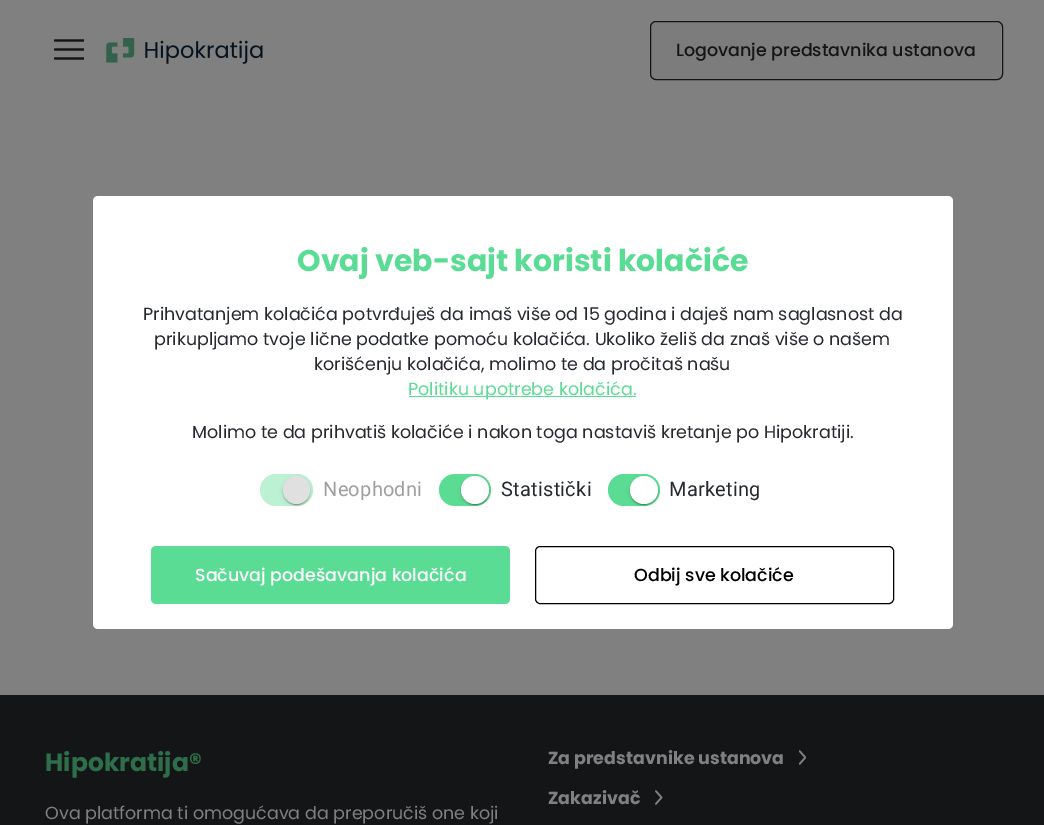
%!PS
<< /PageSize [1044 825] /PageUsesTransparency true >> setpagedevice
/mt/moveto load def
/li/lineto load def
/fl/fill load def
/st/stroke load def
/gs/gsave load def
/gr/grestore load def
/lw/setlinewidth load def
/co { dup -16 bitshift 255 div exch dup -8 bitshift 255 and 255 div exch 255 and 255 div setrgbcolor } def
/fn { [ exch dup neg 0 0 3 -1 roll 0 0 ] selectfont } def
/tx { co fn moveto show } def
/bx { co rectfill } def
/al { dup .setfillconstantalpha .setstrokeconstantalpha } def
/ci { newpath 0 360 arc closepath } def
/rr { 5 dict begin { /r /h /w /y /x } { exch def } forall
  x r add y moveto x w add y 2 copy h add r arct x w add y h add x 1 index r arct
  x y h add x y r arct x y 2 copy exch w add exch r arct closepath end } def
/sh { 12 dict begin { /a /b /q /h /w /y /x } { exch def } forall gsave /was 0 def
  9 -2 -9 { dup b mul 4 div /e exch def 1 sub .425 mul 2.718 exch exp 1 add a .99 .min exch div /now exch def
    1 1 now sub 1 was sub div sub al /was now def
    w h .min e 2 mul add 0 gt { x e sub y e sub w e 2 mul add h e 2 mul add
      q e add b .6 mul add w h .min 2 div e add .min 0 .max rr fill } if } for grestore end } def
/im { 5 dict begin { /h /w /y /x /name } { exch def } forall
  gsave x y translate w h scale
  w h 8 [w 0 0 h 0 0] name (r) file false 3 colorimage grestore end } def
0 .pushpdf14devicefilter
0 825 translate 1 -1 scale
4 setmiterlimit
0 0 1044 825 16#808080 bx
gs
54 30 30 30 rectclip
16#131517 co
2.2 lw
1 setlinecap
1 setlinejoin
55 40.5 mt 84 40.5 li 55 49.5 mt 84 49.5 li 55 58.5 mt 84 58.5 li st
gr
(media/1.raw) 106 38 157 26 im
16#7C7C7C co
651 23 350 56 5 rr fl
16#141517 co
650.5 21.5 352 58 5.5 rr st
0 695 1044 130 16#131517 bx
(media/2.raw) 799 750 7 15 im
(media/3.raw) 655 790 8 15 im
16#FFFFFF co
93 196 860 433 5 rr fl
409 396 227 1 16#5BDC94 bx
16#BDF1D4 co
260 474 53 32 16 rr fl
16#000000 co
283 478 27 27 13.5 2 .12 sh
283 478 27 27 13.5 .5 .14 sh
284 480 25 25 12.5 .5 .2 sh
16#E0E0E0 co
283 476 27 28 13.5 rr fl
16#5BDC94 co
439 474 52 32 16 rr fl
16#000000 co
461 478 28 27 13.5 2 .12 sh
461 478 28 27 13.5 .5 .14 sh
463 480 25 25 12.5 .5 .2 sh
16#FFFFFF co
475 490 14 ci fl
16#5BDC94 co
608 474 52 32 16 rr fl
16#000000 co
630 478 28 27 13.5 2 .12 sh
630 478 28 27 13.5 .5 .14 sh
631 480 25 25 12.5 .5 .2 sh
16#FFFFFF co
644 490 14 ci fl
16#5BDC94 co
151 546 359 58 5 rr fl
16#000000 co
535.5 546.5 358 57 4.5 rr st
(Logovanje predstavnika ustanova) 676 56 /Poppins-Medium 17.5 16#131517 tx
(Hipokratija®) 45 771 /Poppins-Bold 25 16#2E6E4A tx
(Ova platforma ti omogućava da preporučiš one koji) 45 819 /Poppins-Regular 17.5 16#808080 tx
(Za predstavnike ustanova) 548 764 /Poppins-Bold 17.5 16#808080 tx
(Zakazivač) 548 804 /Poppins-Bold 17.5 16#808080 tx
(Ovaj veb-sajt koristi kolačiće) 297 271 /Poppins-Bold 30 16#5BDC94 tx
(Prihvatanjem kolačića potvrđuješ da imaš više od 15 godina i daješ nam saglasnost da) 143 320 /Poppins-Regular 17.5 16#26292E tx
(prikupljamo tvoje lične podatke pomoću kolačića. Ukoliko želiš da znaš više o našem) 154 345 /Poppins-Regular 17.5 16#26292E tx
(korišćenju kolačića, molimo te da pročitaš našu) 314 370 /Poppins-Regular 17.5 16#26292E tx
(Politiku upotrebe kolačića.) 408 395 /Poppins-Regular 17.5 16#5BDC94 tx
(Molimo te da prihvatiš kolačiće i nakon toga nastaviš kretanje po Hipokratiji.) 192 438 /Poppins-Regular 17.5 16#26292E tx
/Roboto-Regular 20 fn
16#9E9E9E co
323 496 mt .25 0 (Neophodni) ashow
16#26292E co
501 496 mt .25 0 (Statistički) ashow
669 496 mt .25 0 (Marketing) ashow
(Sačuvaj podešavanja kolačića) 195 581 /Poppins-Medium 17.5 16#FFFFFF tx
(Odbij sve kolačiće) 634 581 /Poppins-Medium 17.5 16#000000 tx
.poppdf14devicefilter showpage
